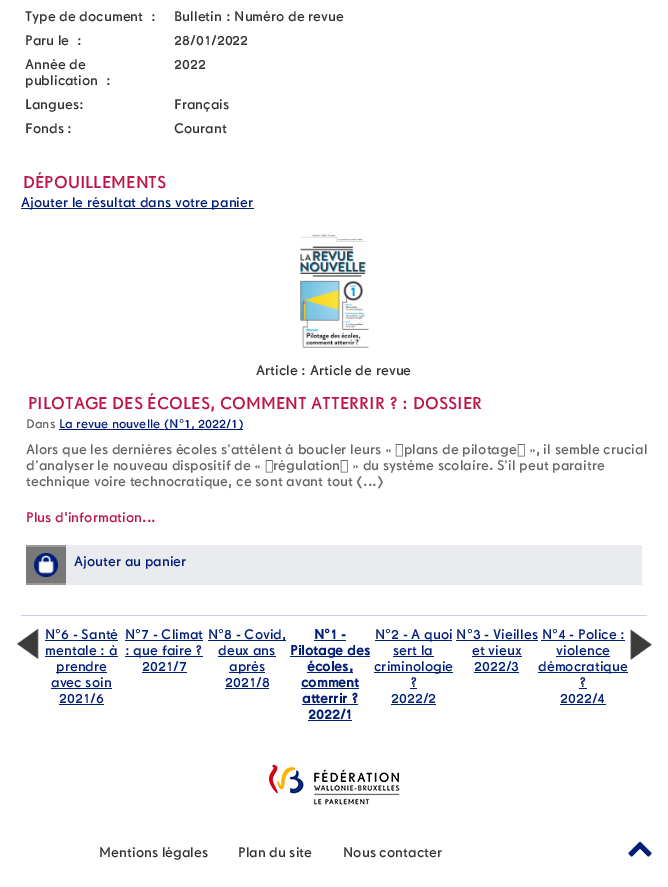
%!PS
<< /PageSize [668 887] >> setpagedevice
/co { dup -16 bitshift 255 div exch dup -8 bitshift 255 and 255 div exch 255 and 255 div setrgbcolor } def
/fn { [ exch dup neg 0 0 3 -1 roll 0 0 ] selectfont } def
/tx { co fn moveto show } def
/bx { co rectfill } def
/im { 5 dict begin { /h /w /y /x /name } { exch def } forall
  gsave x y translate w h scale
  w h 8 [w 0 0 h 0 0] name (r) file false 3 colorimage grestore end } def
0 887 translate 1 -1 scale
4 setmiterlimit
0 0 668 887 16#FFFFFF bx
21 208 233 1 16#001D77 bx
21 615 626 1 16#C9D0E2 bx
(media/1.raw) 300 234 69 114 im
59 429 184 1 16#001D77 bx
26 545 40 40 16#999999 bx
26 547 40 36 16#787878 bx
(media/2.raw) 34 553 24 24 im
66 545 576 40 16#E9EBEE bx
(media/3.raw) 16 628 23 32 im
45 640 73 1 16#001D77 bx
45 656 73 1 16#001D77 bx
56 672 51 1 16#001D77 bx
51 688 61 1 16#001D77 bx
59 704 45 1 16#001D77 bx
125 640 78 1 16#001D77 bx
125 656 78 1 16#001D77 bx
142 672 45 1 16#001D77 bx
208 640 78 1 16#001D77 bx
218 656 58 1 16#001D77 bx
229 672 36 1 16#001D77 bx
225 688 44 1 16#001D77 bx
314 640 32 1 16#001D77 bx
290 656 80 1 16#001D77 bx
307 672 46 1 16#001D77 bx
301 688 58 1 16#001D77 bx
302 704 56 1 16#001D77 bx
308 720 44 1 16#001D77 bx
375 640 77 1 16#001D77 bx
393 656 41 1 16#001D77 bx
374 672 79 1 16#001D77 bx
410 688 7 1 16#001D77 bx
391 704 45 1 16#001D77 bx
(media/4.raw) 630 629 22 31 im
456 640 82 1 16#001D77 bx
472 656 50 1 16#001D77 bx
474 672 45 1 16#001D77 bx
541 640 84 1 16#001D77 bx
556 656 54 1 16#001D77 bx
538 672 90 1 16#001D77 bx
579 688 8 1 16#001D77 bx
560 704 46 1 16#001D77 bx
(media/5.raw) 267 761 133 44 im
(media/6.raw) 628 841 24 16 im
(Type de document) 25 21 /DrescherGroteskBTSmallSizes-Regular 14 16#333333 tx
(:) 151 21 /DrescherGroteskBTSmallSizes-Regular 14 16#333333 tx
(Bulletin : Numéro de revue) 174 21 /DrescherGroteskBTSmallSizes-Regular 14 16#333333 tx
(Paru le) 25 45 /DrescherGroteskBTSmallSizes-Regular 14 16#333333 tx
(:) 77 45 /DrescherGroteskBTSmallSizes-Regular 14 16#333333 tx
(28/01/2022) 174 45 /DrescherGroteskBTSmallSizes-Regular 14 16#333333 tx
(Année de) 25 69 /DrescherGroteskBTSmallSizes-Regular 14 16#333333 tx
(publication) 25 85 /DrescherGroteskBTSmallSizes-Regular 14 16#333333 tx
(:) 106 85 /DrescherGroteskBTSmallSizes-Regular 14 16#333333 tx
(2022) 174 69 /DrescherGroteskBTSmallSizes-Regular 14 16#333333 tx
(Langues:) 25 109 /DrescherGroteskBTSmallSizes-Regular 14 16#333333 tx
(Français) 174 109 /DrescherGroteskBTSmallSizes-Regular 14 16#333333 tx
(Fonds :) 25 133 /DrescherGroteskBTSmallSizes-Regular 14 16#333333 tx
(Courant) 174 133 /DrescherGroteskBTSmallSizes-Regular 14 16#333333 tx
(DÉPOUILLEMENTS) 23 188 /DrescherGroteskBTSmallSizes-Regular 17.25 16#BD1548 tx
(Ajouter le résultat dans votre panier) 21 207 /DrescherGroteskBTSmallSizes-Regular 14 16#001D77 tx
(Article : Article de revue) 256 375 /DrescherGroteskBTSmallSizes-Regular 14 16#333333 tx
(PILOTAGE DES ÉCOLES, COMMENT ATTERRIR ? : DOSSIER) 28 409 /DrescherGroteskBTSmallSizes-Regular 17.25 16#BD1548 tx
(Dans) 26 428 /DrescherGroteskBTSmallSizes-Regular 12.6 16#666666 tx
(La revue nouvelle \(N°1, 2022/1\)) 59 428 /DrescherGroteskBTSmallSizes-Regular 12.6 16#001D77 tx
(Alors que les dernières écoles s’attèlent à boucler leurs «  plans de pilotage  », il semble crucial) 26 454 /DrescherGroteskBTSmallSizes-Regular 14 16#666666 tx
(d’analyser le nouveau dispositif de «  régulation  » du système scolaire. S’il peut paraitre) 26 470 /DrescherGroteskBTSmallSizes-Regular 14 16#666666 tx
(technique voire technocratique, ce sont avant tout [...]) 26 486 /DrescherGroteskBTSmallSizes-Regular 14 16#666666 tx
(Plus d'information...) 26 522 /DrescherGroteskBTSmallSizes-Regular 14 16#BD1548 tx
(Ajouter au panier) 74 566 /DrescherGroteskBTSmallSizes-Regular 14 16#001D77 tx
(N°6 - Santé) 45 639 /DrescherGroteskBTSmallSizes-Regular 14 16#001D77 tx
(mentale : à) 45 655 /DrescherGroteskBTSmallSizes-Regular 14 16#001D77 tx
(prendre) 56 671 /DrescherGroteskBTSmallSizes-Regular 14 16#001D77 tx
(avec soin) 51 687 /DrescherGroteskBTSmallSizes-Regular 14 16#001D77 tx
(2021/6) 59 703 /DrescherGroteskBTSmallSizes-Regular 14 16#001D77 tx
(N°7 - Climat) 125 639 /DrescherGroteskBTSmallSizes-Regular 14 16#001D77 tx
(: que faire ?) 125 655 /DrescherGroteskBTSmallSizes-Regular 14 16#001D77 tx
(2021/7) 142 671 /DrescherGroteskBTSmallSizes-Regular 14 16#001D77 tx
(N°8 - Covid,) 208 639 /DrescherGroteskBTSmallSizes-Regular 14 16#001D77 tx
(deux ans) 218 655 /DrescherGroteskBTSmallSizes-Regular 14 16#001D77 tx
(après) 229 671 /DrescherGroteskBTSmallSizes-Regular 14 16#001D77 tx
(2021/8) 225 687 /DrescherGroteskBTSmallSizes-Regular 14 16#001D77 tx
(N°1 -) 314 639 /DrescherGroteskBTSmallSizes-Bold 14 16#001D77 tx
(Pilotage des) 290 655 /DrescherGroteskBTSmallSizes-Bold 14 16#001D77 tx
(écoles,) 307 671 /DrescherGroteskBTSmallSizes-Bold 14 16#001D77 tx
(comment) 301 687 /DrescherGroteskBTSmallSizes-Bold 14 16#001D77 tx
(atterrir ?) 302 703 /DrescherGroteskBTSmallSizes-Bold 14 16#001D77 tx
(2022/1) 308 719 /DrescherGroteskBTSmallSizes-Bold 14 16#001D77 tx
(N°2 - A quoi N°3 - Vieilles N°4 - Police :) 375 639 /DrescherGroteskBTSmallSizes-Regular 14 16#001D77 tx
(sert la) 393 655 /DrescherGroteskBTSmallSizes-Regular 14 16#001D77 tx
(criminologie) 374 671 /DrescherGroteskBTSmallSizes-Regular 14 16#001D77 tx
(?) 410 687 /DrescherGroteskBTSmallSizes-Regular 14 16#001D77 tx
(2022/2) 391 703 /DrescherGroteskBTSmallSizes-Regular 14 16#001D77 tx
(et vieux) 472 655 /DrescherGroteskBTSmallSizes-Regular 14 16#001D77 tx
(2022/3) 474 671 /DrescherGroteskBTSmallSizes-Regular 14 16#001D77 tx
(violence) 556 655 /DrescherGroteskBTSmallSizes-Regular 14 16#001D77 tx
(démocratique) 538 671 /DrescherGroteskBTSmallSizes-Regular 14 16#001D77 tx
(?) 579 687 /DrescherGroteskBTSmallSizes-Regular 14 16#001D77 tx
(2022/4) 560 703 /DrescherGroteskBTSmallSizes-Regular 14 16#001D77 tx
(Mentions légales) 99 857 /DrescherGroteskBTSmallSizes-Regular 14 16#333333 tx
(Plan du site) 238 857 /DrescherGroteskBTSmallSizes-Regular 14 16#333333 tx
(Nous contacter) 343 857 /DrescherGroteskBTSmallSizes-Regular 14 16#333333 tx
showpage
